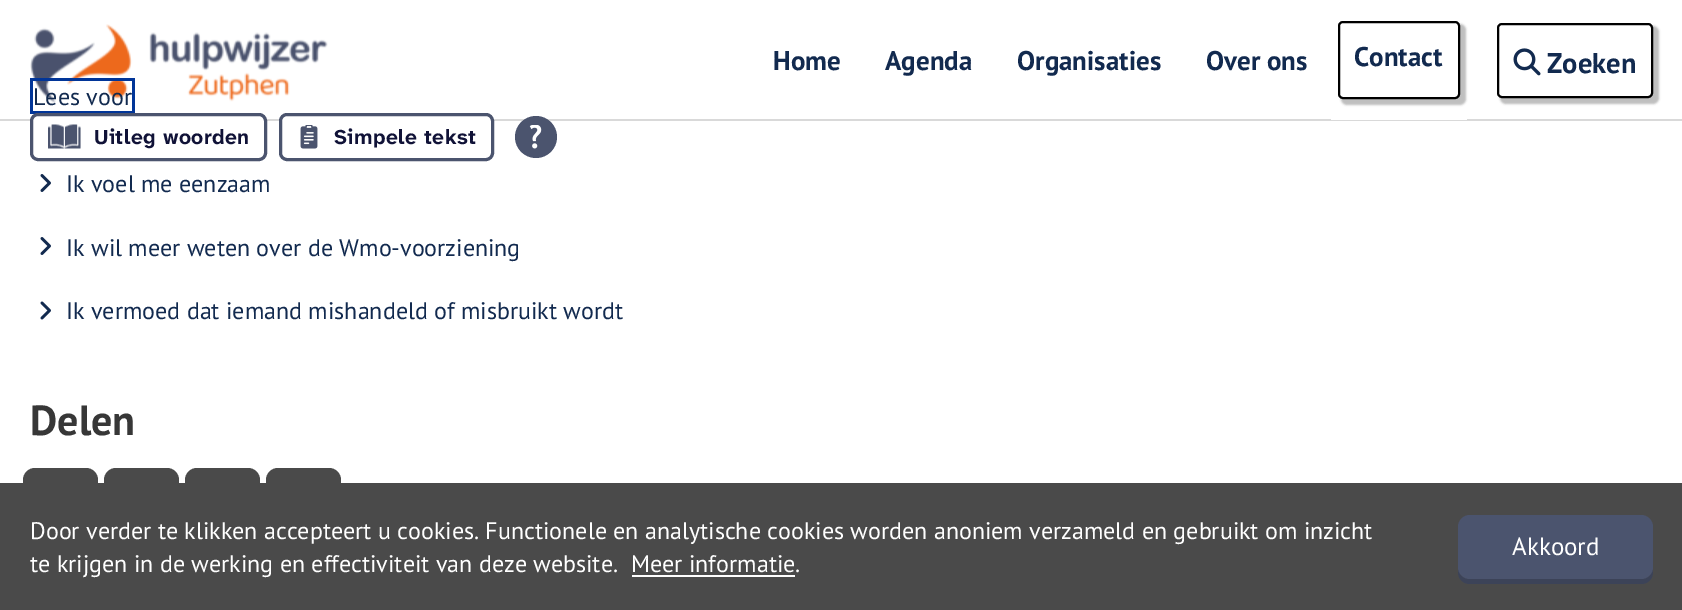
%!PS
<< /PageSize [1682 610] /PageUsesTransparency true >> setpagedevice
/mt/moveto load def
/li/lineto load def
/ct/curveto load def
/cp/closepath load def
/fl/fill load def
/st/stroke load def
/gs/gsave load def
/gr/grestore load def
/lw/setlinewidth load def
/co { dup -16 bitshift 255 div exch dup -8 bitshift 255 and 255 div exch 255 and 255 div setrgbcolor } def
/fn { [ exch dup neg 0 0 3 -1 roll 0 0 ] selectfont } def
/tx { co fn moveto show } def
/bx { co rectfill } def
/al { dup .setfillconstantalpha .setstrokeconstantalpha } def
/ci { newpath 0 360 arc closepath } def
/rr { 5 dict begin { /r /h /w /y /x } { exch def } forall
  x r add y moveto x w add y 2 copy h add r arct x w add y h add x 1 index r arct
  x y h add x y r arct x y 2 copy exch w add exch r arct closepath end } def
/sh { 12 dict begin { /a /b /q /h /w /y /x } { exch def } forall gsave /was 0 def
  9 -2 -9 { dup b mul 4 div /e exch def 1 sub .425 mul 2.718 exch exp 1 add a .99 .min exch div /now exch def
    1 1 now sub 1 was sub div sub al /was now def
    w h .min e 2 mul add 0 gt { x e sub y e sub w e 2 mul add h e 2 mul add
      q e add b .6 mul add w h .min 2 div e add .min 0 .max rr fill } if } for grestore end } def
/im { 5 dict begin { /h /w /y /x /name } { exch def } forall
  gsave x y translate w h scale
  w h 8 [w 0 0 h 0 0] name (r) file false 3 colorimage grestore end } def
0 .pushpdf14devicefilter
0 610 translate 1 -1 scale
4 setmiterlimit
0 0 1682 610 16#FFFFFF bx
0 119 1682 2 16#D9D9D9 bx
(media/1.raw) 30 24 298 79 im
1331 119 136 1 16#FFFFFF bx
16#000000 co
1341 24 125 81 6 1 .25 sh
16#FFFFFF co
1339 22 120 76 4 rr gs fl gr
16#000000 co
2 lw
st
1500 26 159 78 6 1 .25 sh
16#FFFFFF co
1498 24 154 73 4 rr gs fl gr
16#000000 co
st
(media/2.raw) 1513 48 28 28 im
30 78 102 3 16#013598 bx
30 111 102 3 16#013598 bx
30 78 3 36 16#013598 bx
132 78 3 36 16#013598 bx
16#FFFFFF co
31.5 114.5 234 45 6.5 rr gs fl gr
16#4B546E co
3 lw
st
(media/3.raw) 48 124 33 25 im
16#FFFFFF co
280.5 114.5 212 45 6.5 rr gs fl gr
16#4B546E co
st
(media/4.raw) 300 125 18 24 im
536 137 21 ci fl
(media/5.raw) 529 125 13 24 im
(media/6.raw) 40 174 11 18 im
(media/6.raw) 40 237 11 18 im
(media/7.raw) 40 301 11 19 im
16#4A4A4A co
23 468 75 68 12 rr fl
104 468 75 68 12 rr fl
185 468 75 68 12 rr fl
266 468 75 68 12 rr fl
0 483 1682 127 16#4A4A4A bx
632 575 163 2 16#FFFFFF bx
16#3C4358 co
1458 567 mt 1458 572 li 1458 579 1463 584 1470 584 ct 1641 584 li 1648 584 1653 579 1653 572 ct 1653 567 li 1653 574 1648 579 1641 579 ct 1470 579 li 1463 579 1458 574 1458 567 ct cp fl
16#4B546E co
1458 515 195 64 12 rr fl
(Home) 773 70 /PTSans-Bold 27 16#122A4F tx
(Agenda) 885 70 /PTSans-Bold 27 16#122A4F tx
(Organisaties) 1017 70 /PTSans-Bold 27 16#122A4F tx
(Over ons) 1206 70 /PTSans-Bold 27 16#122A4F tx
(Contact) 1354 66 /PTSans-Bold 27 16#122A4F tx
(Zoeken) 1547 73 /PTSans-Bold 28.5 16#122A4F tx
(Lees voor) 33 105 /PTSans-Regular 24 16#122A4F tx
/AtkinsonHyperlegibleNext-Bold 21 fn
16#101237 co
94 144 mt .4 0 (Uitleg woorden) ashow
334 144 mt .4 0 (Simpele tekst) ashow
(Ik voel me eenzaam) 66 192 /PTSans-Regular 24 16#122A4F tx
(Ik wil meer weten over de Wmo-voorziening) 66 256 /PTSans-Regular 24 16#122A4F tx
(Ik vermoed dat iemand mishandeld of misbruikt wordt) 66 319 /PTSans-Regular 24 16#122A4F tx
(Delen) 30 435 /PTSans-Bold 42 16#373737 tx
(Door verder te klikken accepteert u cookies. Functionele en analytische cookies worden anoniem verzameld en gebruikt om inzicht) 30 539 /PTSans-Regular 24 16#FFFFFF tx
(te krijgen in de werking en effectiviteit van deze website.) 30 572 /PTSans-Regular 24 16#FFFFFF tx
(Meer informatie.) 631 572 /PTSans-Regular 24 16#FFFFFF tx
(Akkoord) 1512 555 /PTSans-Regular 25 16#FFFFFF tx
.poppdf14devicefilter showpage
